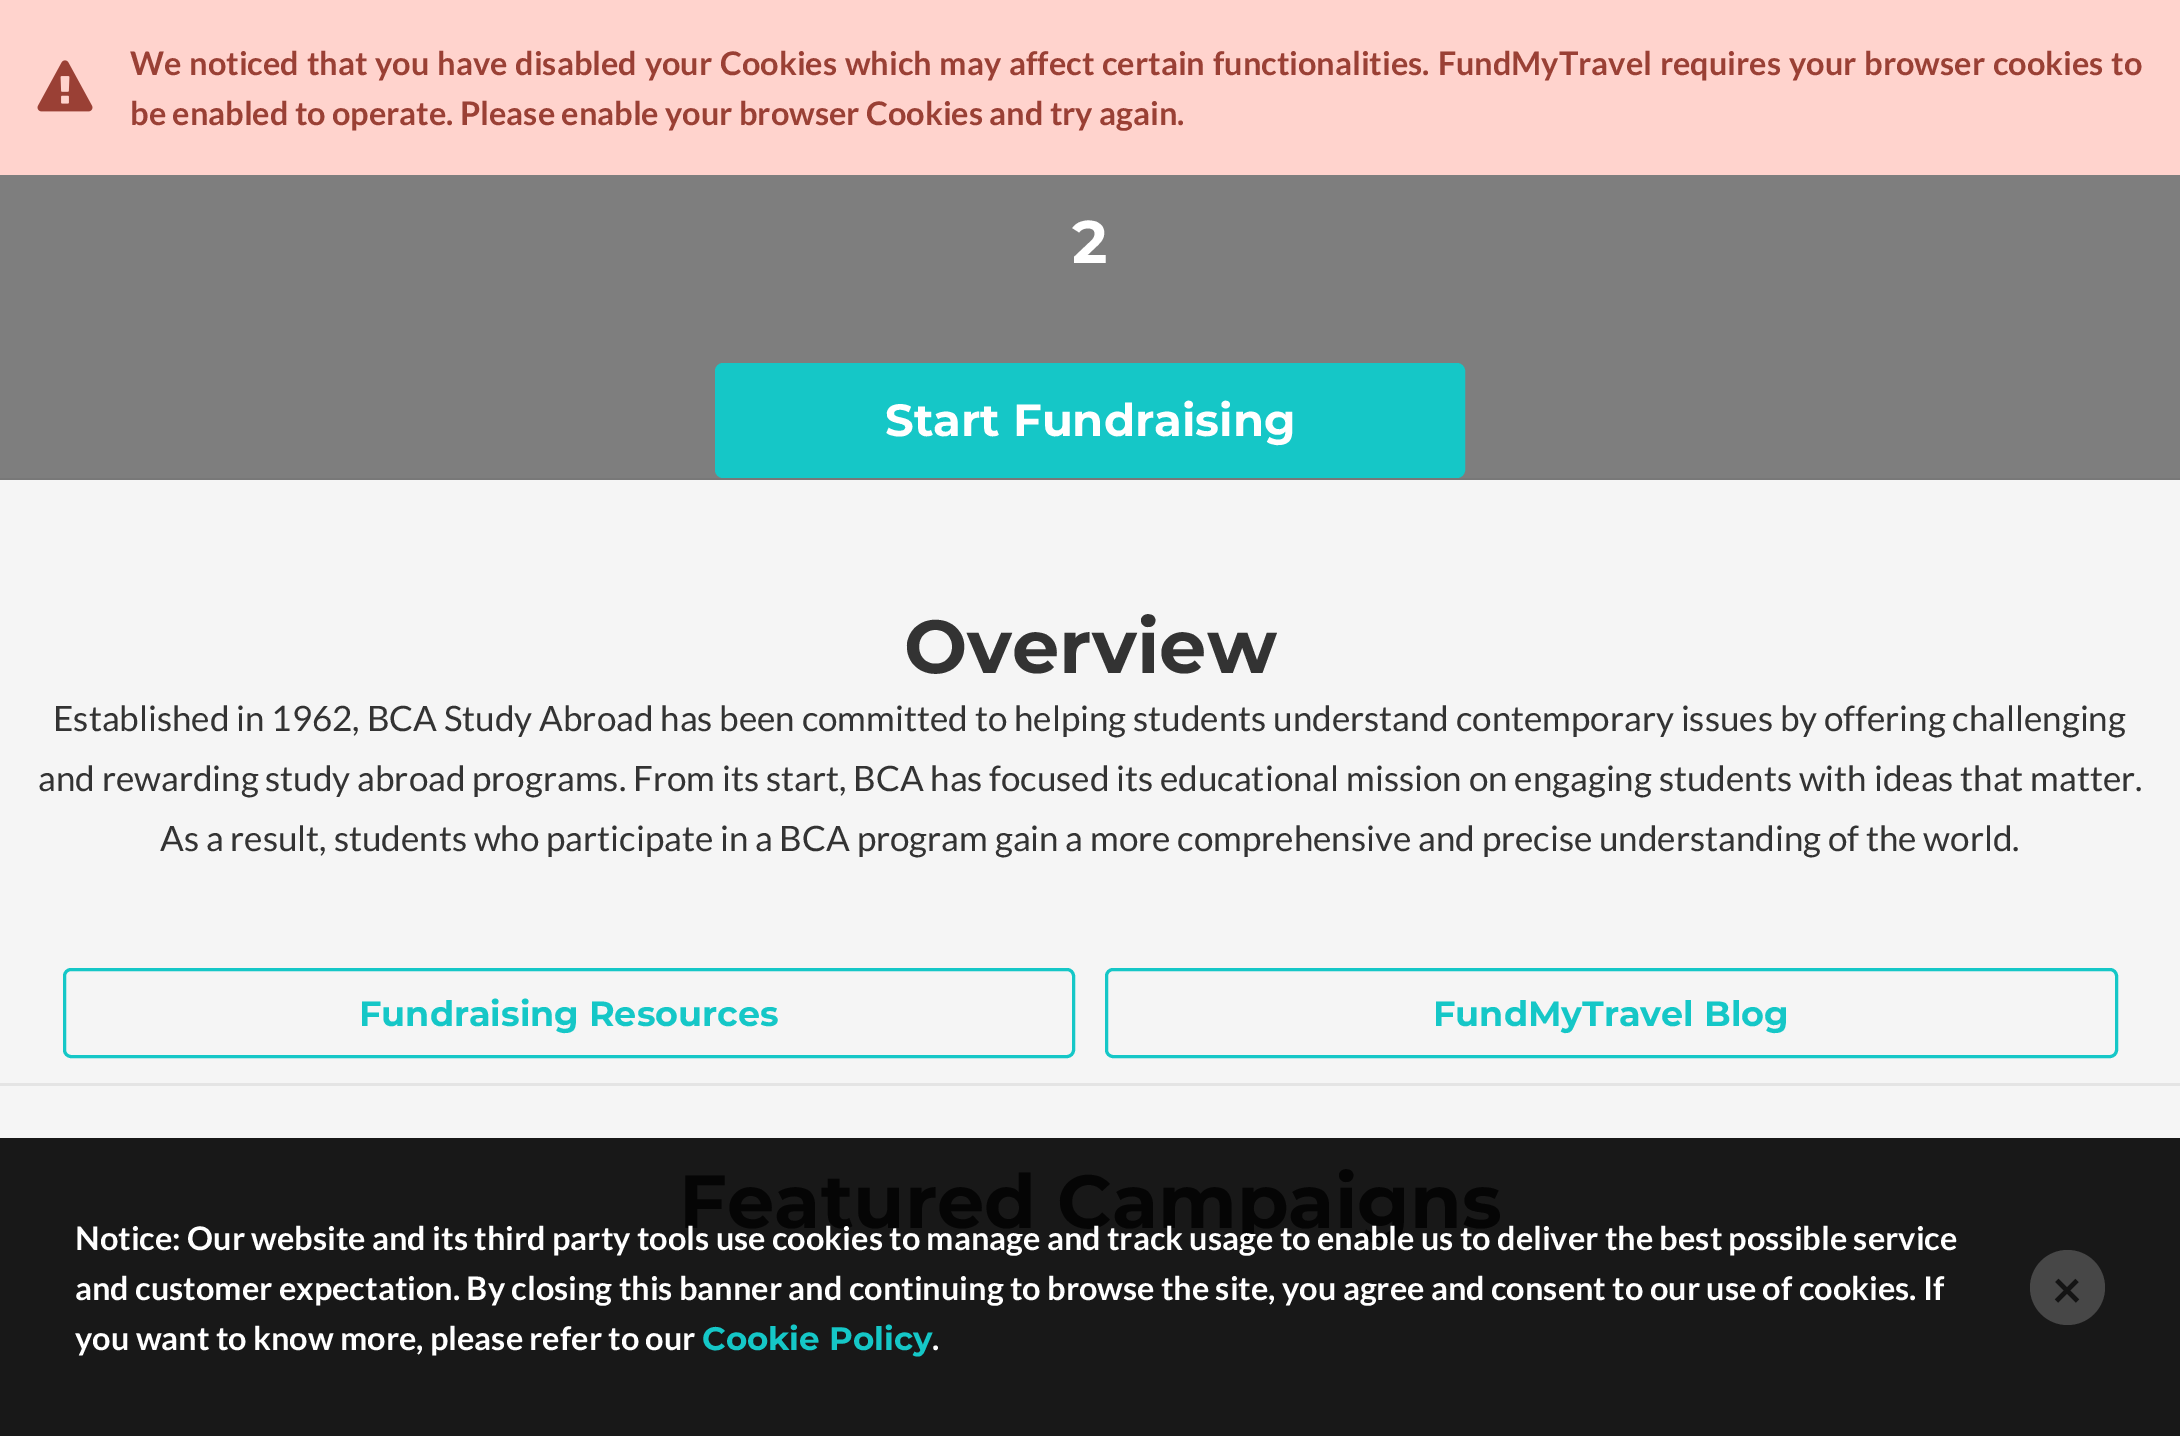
%!PS
<< /PageSize [2180 1436] >> setpagedevice
/mt/moveto load def
/fl/fill load def
/st/stroke load def
/gs/gsave load def
/gr/grestore load def
/lw/setlinewidth load def
/co { dup -16 bitshift 255 div exch dup -8 bitshift 255 and 255 div exch 255 and 255 div setrgbcolor } def
/fn { [ exch dup neg 0 0 3 -1 roll 0 0 ] selectfont } def
/tx { co fn moveto show } def
/bx { co rectfill } def
/ci { newpath 0 360 arc closepath } def
/rr { 5 dict begin { /r /h /w /y /x } { exch def } forall
  x r add y moveto x w add y 2 copy h add r arct x w add y h add x 1 index r arct
  x y h add x y r arct x y 2 copy exch w add exch r arct closepath end } def
/im { 5 dict begin { /h /w /y /x /name } { exch def } forall
  gsave x y translate w h scale
  w h 8 [w 0 0 h 0 0] name (r) file false 3 colorimage grestore end } def
0 1436 translate 1 -1 scale
4 setmiterlimit
0 0 2180 1436 16#F5F5F5 bx
0 1138 2180 298 16#181818 bx
0 175 2180 303 16#7E7E7E bx
0 0 2180 175 16#FFD3CD bx
(media/1.raw) 37 60 56 52 im
16#15C7C7 co
716.5 364.5 747 112 6.5 rr gs fl gr
3 lw
st
0 478 2180 2 16#787878 bx
0 1083 2180 3 16#E4E4E4 bx
16#15C7C7 co
64.5 969.5 1009 87 6.5 rr st
1106.5 969.5 1010 87 6.5 rr st
16#474747 co
2067.5 1287.5 37.5 ci fl
/Lato-Bold 32.5 fn
16#9A4035 co
130 75 mt 1.5 0 32 (We noticed that you have disabled your Cookies which may affect certain functionalities. FundMyTravel requires your browser cookies to) widthshow
(be enabled to operate. Please enable your browser Cookies and try again.) 130 125 /Lato-Bold 32.5 16#9A4035 tx
(2) 1072 263 /Montserrat-Bold 60 16#FFFFFF tx
(Start Fundraising) 885 436 /Montserrat-Bold 45 16#FFFFFF tx
(Overview) 904 673 /Montserrat-Bold 75 16#333333 tx
(Established in 1962, BCA Study Abroad has been committed to helping students understand contemporary issues by offering challenging) 53 731 /Lato-Regular 35 16#333333 tx
(and rewarding study abroad programs. From its start, BCA has focused its educational mission on engaging students with ideas that matter.) 38 791 /Lato-Regular 35 16#333333 tx
(As a result, students who participate in a BCA program gain a more comprehensive and precise understanding of the world.) 160 851 /Lato-Regular 35 16#333333 tx
(Fundraising Resources) 359 1026 /Montserrat-Bold 35 16#15C7C7 tx
(FundMyTravel Blog) 1433 1026 /Montserrat-Bold 35 16#15C7C7 tx
(Featured Campaigns) 679 1228 /Montserrat-Bold 75 16#050505 tx
(Notice: Our website and its third party tools use cookies to manage and track usage to enable us to deliver the best possible service) 75 1250 /Lato-Bold 32.5 16#FFFFFF tx
(and customer expectation. By closing this banner and continuing to browse the site, you agree and consent to our use of cookies. If) 75 1300 /Lato-Bold 32.5 16#FFFFFF tx
(you want to know more, please refer to our) 75 1350 /Lato-Bold 32.5 16#FFFFFF tx
(Cookie Policy) 702 1350 /Montserrat-Bold 32.5 16#15C7C7 tx
(.) 932 1350 /Lato-Bold 32.5 16#FFFFFF tx
(×) 2052 1308 /Lato-Bold 52 16#141414 tx
showpage
